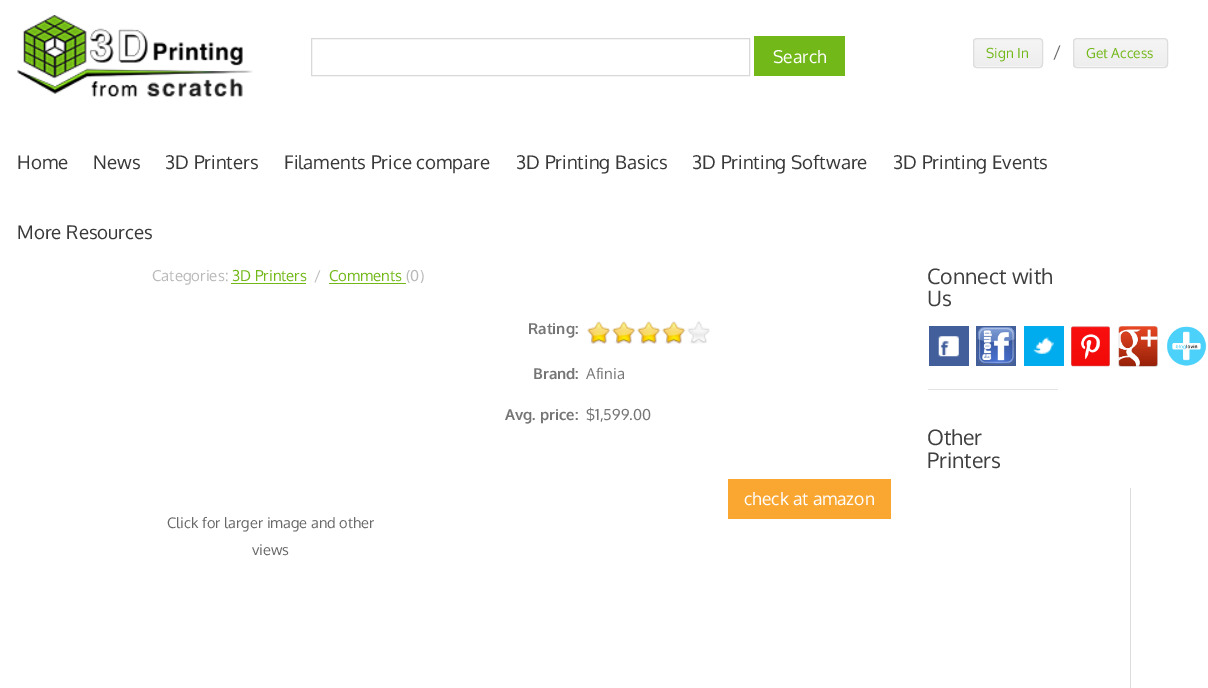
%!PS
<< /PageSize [1208 688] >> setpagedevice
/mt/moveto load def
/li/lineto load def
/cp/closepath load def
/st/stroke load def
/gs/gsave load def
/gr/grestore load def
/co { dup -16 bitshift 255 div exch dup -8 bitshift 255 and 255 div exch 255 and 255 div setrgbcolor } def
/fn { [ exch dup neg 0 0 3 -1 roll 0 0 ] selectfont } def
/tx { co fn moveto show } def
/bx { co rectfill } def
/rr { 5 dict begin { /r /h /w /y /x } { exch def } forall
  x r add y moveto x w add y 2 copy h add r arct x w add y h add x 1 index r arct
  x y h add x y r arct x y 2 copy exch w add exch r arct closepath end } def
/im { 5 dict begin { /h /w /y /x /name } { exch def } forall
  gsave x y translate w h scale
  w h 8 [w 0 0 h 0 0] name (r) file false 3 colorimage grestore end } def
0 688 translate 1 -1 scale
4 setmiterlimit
0 0 1208 688 16#FFFFFF bx
(media/1.raw) 17 15 236 82 im
16#D9D9D9 co
311.5 38.5 438 37 rectstroke
754 36 91 40 16#73B819 bx
gs
973 38 70 30 4 rr clip newpath
gs 973 39 mt 1043 39 li 1043 66 li 973 66 li cp clip newpath
<< /ShadingType 2 /ColorSpace /DeviceRGB /Coords [1008 39 1008 66] /Extend [true true] /Function << /FunctionType 2 /Domain [0 1] /C0 [.961 .961 .961] /C1 [.933 .933 .933] /N 1 >> >> shfill gr
gs 973 66 mt 1043 66 li 1043 68 li 973 68 li cp clip newpath
<< /ShadingType 2 /ColorSpace /DeviceRGB /Coords [1008 66 1008 94] /Extend [true true] /Function << /FunctionType 2 /Domain [0 1] /C0 [.961 .961 .961] /C1 [.933 .933 .933] /N 1 >> >> shfill gr
gr
16#DDDDDD co
973.5 38.5 69 29 3.5 rr st
gs
1073 38 95 30 4 rr clip newpath
gs 1073 39 mt 1168 39 li 1168 66 li 1073 66 li cp clip newpath
<< /ShadingType 2 /ColorSpace /DeviceRGB /Coords [1120 39 1120 66] /Extend [true true] /Function << /FunctionType 2 /Domain [0 1] /C0 [.961 .961 .961] /C1 [.933 .933 .933] /N 1 >> >> shfill gr
gs 1073 66 mt 1168 66 li 1168 68 li 1073 68 li cp clip newpath
<< /ShadingType 2 /ColorSpace /DeviceRGB /Coords [1120 66 1120 94] /Extend [true true] /Function << /FunctionType 2 /Domain [0 1] /C0 [.961 .961 .961] /C1 [.933 .933 .933] /N 1 >> >> shfill gr
gr
1073.5 38.5 94 29 3.5 rr st
231 283 75 1 16#73B819 bx
329 283 77 1 16#73B819 bx
(media/2.raw) 587 321 123 23 im
(media/3.raw) 587 322 99 22 im
728 479 163 40 16#FAA732 bx
928 389 130 1 16#E3E3E3 bx
929 326 40 40 16#425F9C bx
(media/4.raw) 938 336 21 21 im
976 326 40 40 16#425F9C bx
(media/5.raw) 977 327 38 38 im
1024 326 40 40 16#00ACEE bx
(media/6.raw) 1033 337 21 17 im
(media/7.raw) 1071 326 39 41 im
(media/8.raw) 1118 326 40 41 im
(media/9.raw) 1167 326 40 40 im
1130 488 1 200 16#DDDDDD bx
(Search) 773 63 /Oxygen-Regular 17.5 16#FFFFFF tx
(Sign In) 986 58 /Oxygen-Regular 13.75 16#73B819 tx
(/) 1053 58 /Oxygen-Regular 17.5 16#686868 tx
(Get Access) 1086 58 /Oxygen-Regular 13.75 16#73B819 tx
(Home) 17 169 /Oxygen-Regular 18.75 16#393939 tx
(News) 93 169 /Oxygen-Regular 18.75 16#393939 tx
(3D Printers) 165 169 /Oxygen-Regular 18.75 16#393939 tx
(Filaments Price compare) 284 169 /Oxygen-Regular 18.75 16#393939 tx
(3D Printing Basics) 516 169 /Oxygen-Regular 18.75 16#393939 tx
(3D Printing Software) 692 169 /Oxygen-Regular 18.75 16#393939 tx
(3D Printing Events) 893 169 /Oxygen-Regular 18.75 16#393939 tx
(More Resources) 17 239 /Oxygen-Regular 18.75 16#393939 tx
(Categories:) 152 281 /Oxygen-Regular 15 16#B9B9B9 tx
(3D Printers) 232 281 /Oxygen-Regular 15 16#73B819 tx
(/) 314 281 /Oxygen-Regular 15 16#B9B9B9 tx
(Comments) 329 281 /Oxygen-Regular 15 16#73B819 tx
(\(0\)) 406 281 /Oxygen-Regular 15 16#B9B9B9 tx
(Rating:) 528 334 /Oxygen-Bold 15 16#757575 tx
(Brand:) 533 379 /Oxygen-Bold 15 16#757575 tx
(Afinia) 586 379 /Oxygen-Regular 15 16#757575 tx
(Avg. price:) 505 420 /Oxygen-Bold 15 16#757575 tx
($1,599.00) 586 420 /Oxygen-Regular 15 16#757575 tx
(check at amazon) 744 505 /Oxygen-Regular 17.5 16#FFFFFF tx
(Click for larger image and other) 167 528 /Oxygen-Regular 14.6 16#686868 tx
(views) 252 555 /Oxygen-Regular 14.6 16#686868 tx
(Connect with) 927 284 /Oxygen-Regular 21.25 16#3F3F3F tx
(Us) 927 306 /Oxygen-Regular 21.25 16#3F3F3F tx
(Other) 927 445 /Oxygen-Regular 21.25 16#3F3F3F tx
(Printers) 927 468 /Oxygen-Regular 21.25 16#3F3F3F tx
showpage
